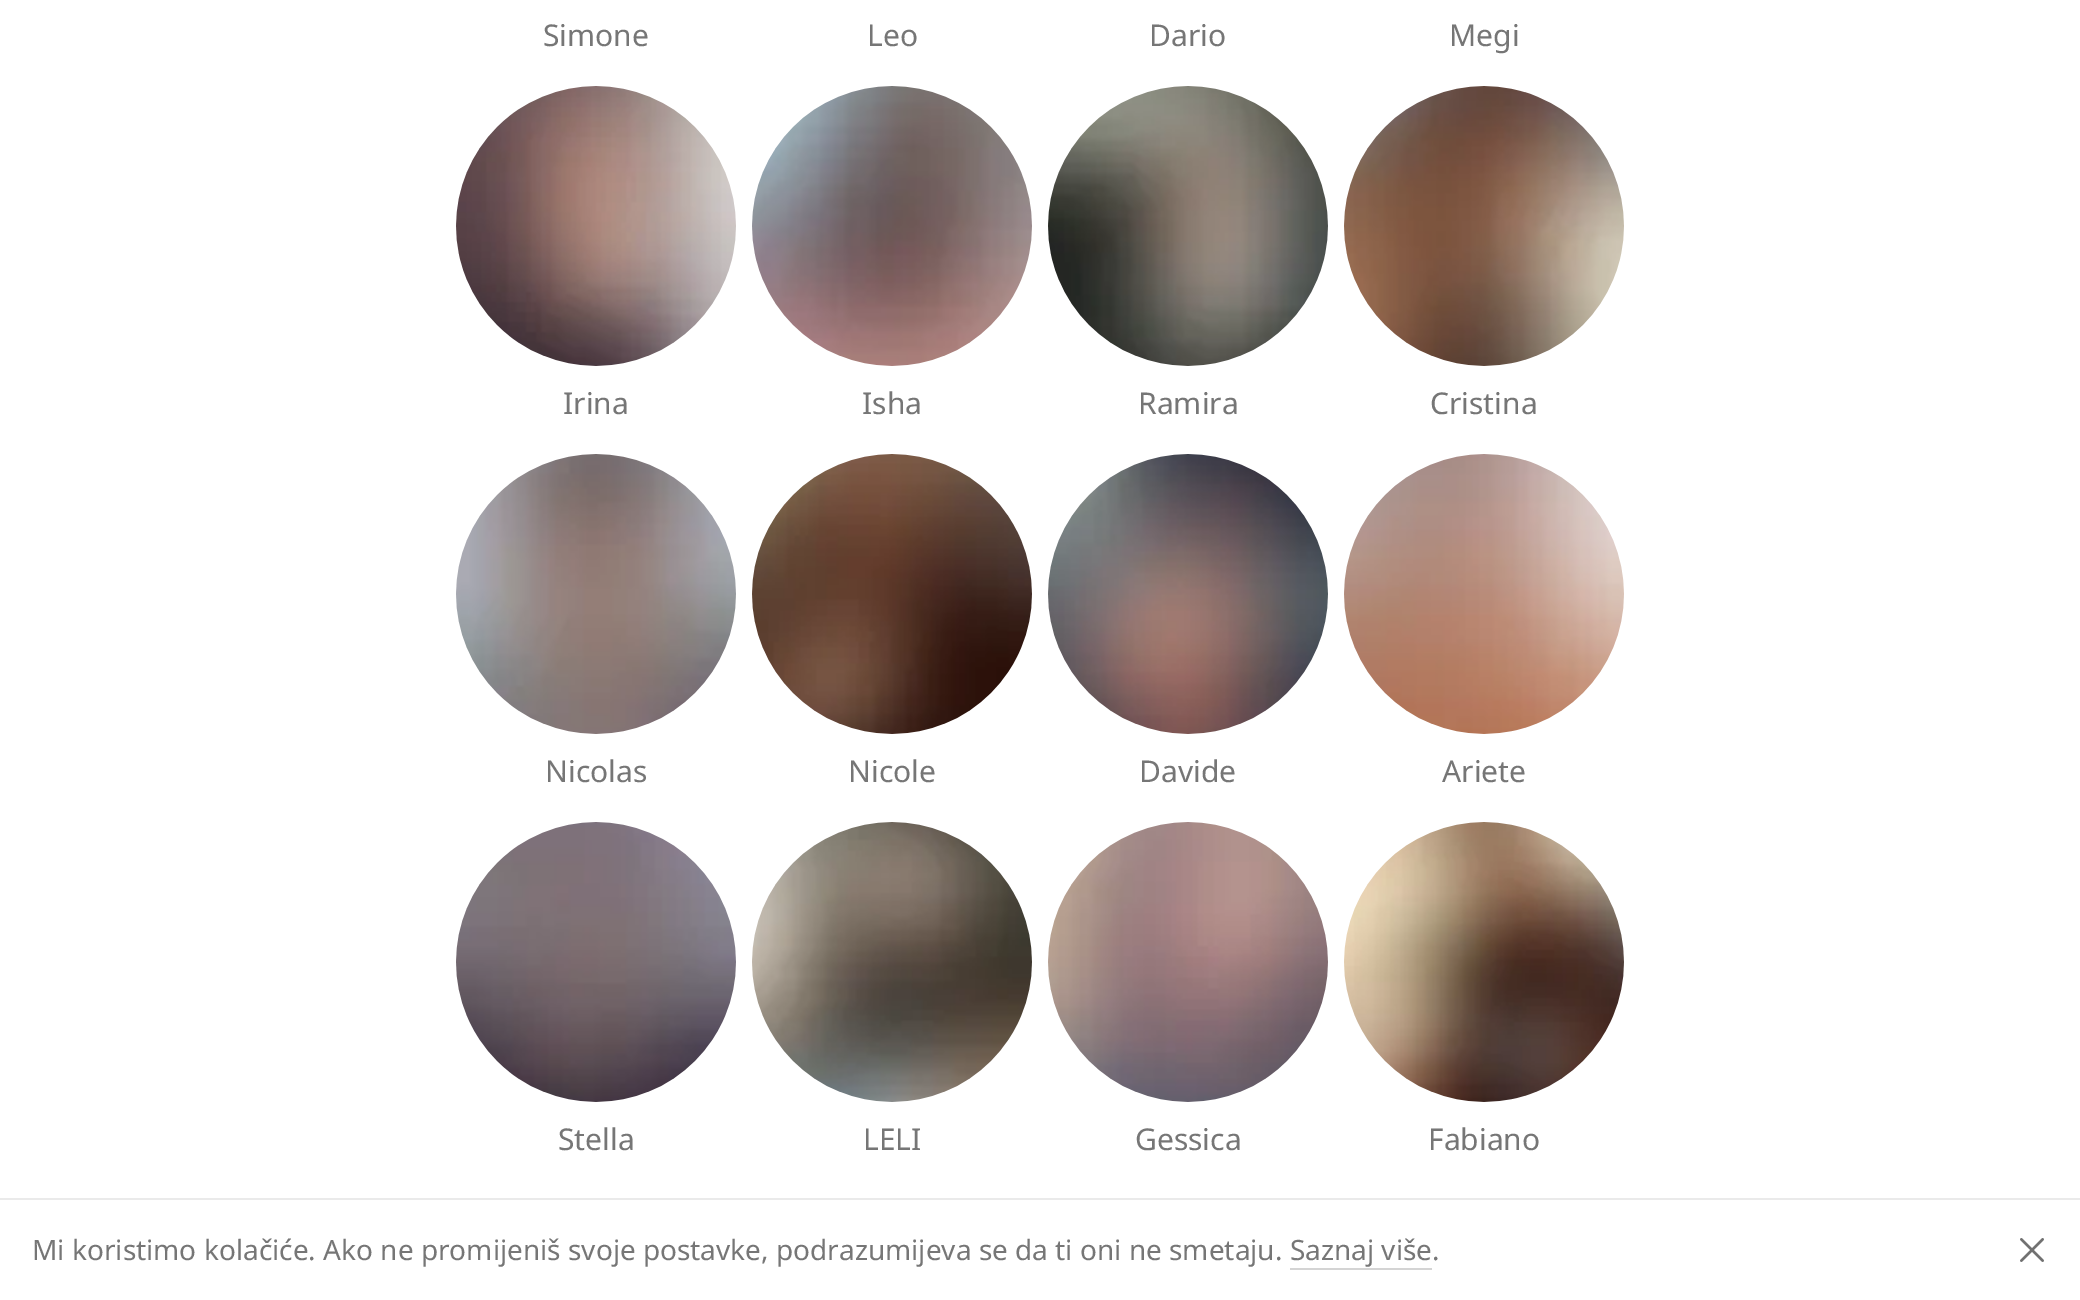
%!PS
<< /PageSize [2080 1300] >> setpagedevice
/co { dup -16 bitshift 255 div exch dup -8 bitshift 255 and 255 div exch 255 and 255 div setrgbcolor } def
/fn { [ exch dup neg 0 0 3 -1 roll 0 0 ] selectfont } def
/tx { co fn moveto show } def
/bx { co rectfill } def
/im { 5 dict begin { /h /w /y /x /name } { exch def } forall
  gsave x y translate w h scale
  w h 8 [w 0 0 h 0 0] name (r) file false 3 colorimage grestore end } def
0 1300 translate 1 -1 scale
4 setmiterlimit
0 0 2080 1300 16#FFFFFF bx
(media/1.raw) 456 86 280 280 im
(media/2.raw) 752 86 280 280 im
(media/3.raw) 1048 86 280 280 im
(media/4.raw) 1344 86 280 280 im
(media/5.raw) 456 454 280 280 im
(media/6.raw) 752 454 280 280 im
(media/7.raw) 1048 454 280 280 im
(media/8.raw) 1344 454 280 280 im
(media/9.raw) 456 822 280 280 im
(media/10.raw) 752 822 280 280 im
(media/11.raw) 1048 822 280 280 im
(media/12.raw) 1344 822 280 280 im
0 1198 2080 2 16#EAEAEA bx
1290 1268 142 2 16#D4D4D4 bx
(media/13.raw) 2020 1238 24 24 im
(Simone) 543 46 /NotoSans-Regular 30 16#767676 tx
(Leo) 867 46 /NotoSans-Regular 30 16#767676 tx
(Dario) 1149 46 /NotoSans-Regular 30 16#767676 tx
(Megi) 1449 46 /NotoSans-Regular 30 16#767676 tx
(Irina) 563 414 /NotoSans-Regular 30 16#767676 tx
(Isha) 862 414 /NotoSans-Regular 30 16#767676 tx
(Ramira) 1138 414 /NotoSans-Regular 30 16#767676 tx
(Cristina) 1430 414 /NotoSans-Regular 30 16#767676 tx
(Nicolas) 545 782 /NotoSans-Regular 30 16#767676 tx
(Nicole) 848 782 /NotoSans-Regular 30 16#767676 tx
(Davide) 1139 782 /NotoSans-Regular 30 16#767676 tx
(Ariete) 1442 782 /NotoSans-Regular 30 16#767676 tx
(Stella) 558 1150 /NotoSans-Regular 30 16#767676 tx
(LELI) 863 1150 /NotoSans-Regular 30 16#767676 tx
(Gessica) 1135 1150 /NotoSans-Regular 30 16#767676 tx
(Fabiano) 1428 1150 /NotoSans-Regular 30 16#767676 tx
(Mi koristimo kolačiće. Ako ne promijeniš svoje postavke, podrazumijeva se da ti oni ne smetaju. Saznaj više.) 32 1260 /NotoSans-Regular 28 16#767676 tx
showpage
